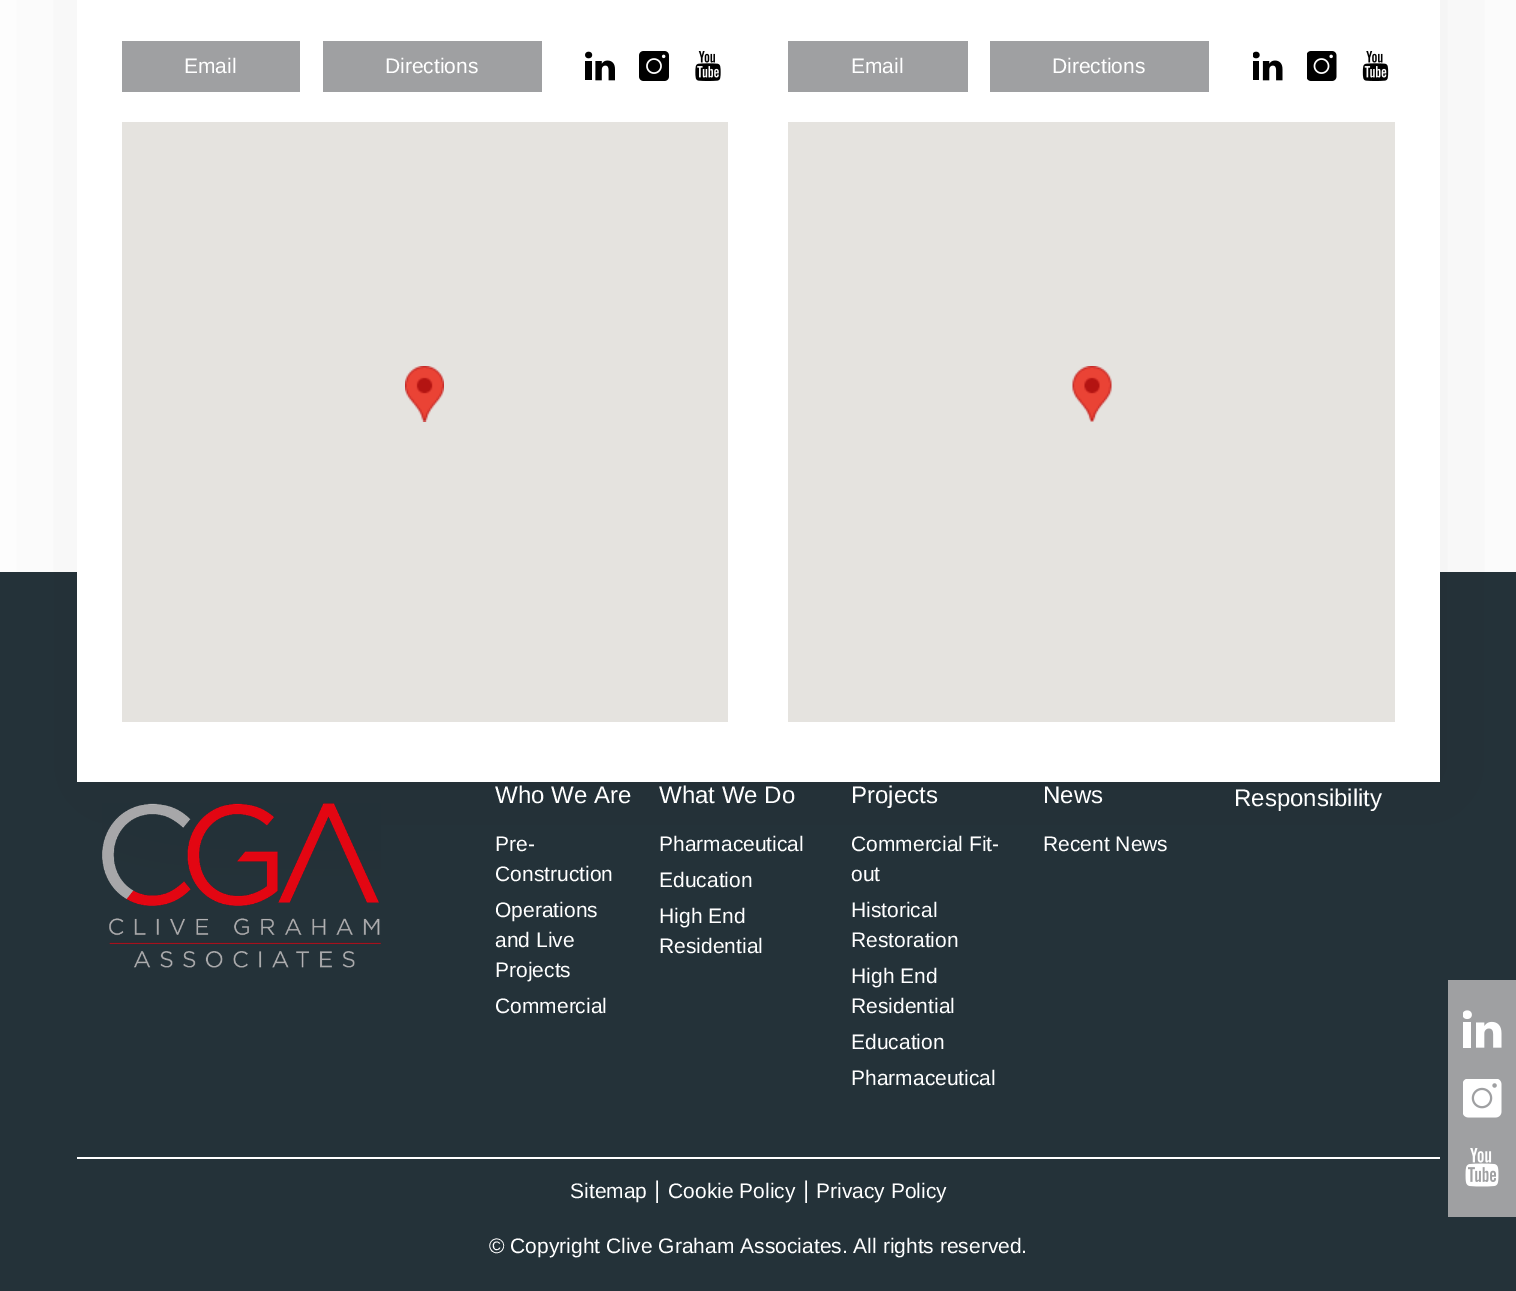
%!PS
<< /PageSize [1516 1291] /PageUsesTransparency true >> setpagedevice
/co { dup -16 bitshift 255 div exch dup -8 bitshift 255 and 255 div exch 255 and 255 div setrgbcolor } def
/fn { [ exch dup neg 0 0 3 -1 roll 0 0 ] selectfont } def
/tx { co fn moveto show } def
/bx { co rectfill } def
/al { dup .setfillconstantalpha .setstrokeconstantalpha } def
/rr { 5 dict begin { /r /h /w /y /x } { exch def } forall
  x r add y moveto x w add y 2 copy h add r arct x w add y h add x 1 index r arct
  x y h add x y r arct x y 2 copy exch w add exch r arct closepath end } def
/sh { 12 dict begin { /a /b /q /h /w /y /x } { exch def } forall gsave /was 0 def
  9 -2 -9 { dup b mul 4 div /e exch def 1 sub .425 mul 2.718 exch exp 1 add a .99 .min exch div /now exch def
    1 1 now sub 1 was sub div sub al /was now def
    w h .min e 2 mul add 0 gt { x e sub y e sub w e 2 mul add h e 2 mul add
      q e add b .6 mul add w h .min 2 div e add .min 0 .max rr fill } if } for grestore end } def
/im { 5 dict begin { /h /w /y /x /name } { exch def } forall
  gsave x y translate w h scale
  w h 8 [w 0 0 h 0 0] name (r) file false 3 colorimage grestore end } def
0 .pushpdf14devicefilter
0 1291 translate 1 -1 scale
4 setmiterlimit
0 0 1516 1291 16#FFFFFF bx
0 572 1516 719 16#243239 bx
16#000000 co
72 -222 1394 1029 0 74 .05 sh
77 0 1363 782 16#FFFFFF bx
122 41 178 51 16#9FA0A2 bx
323 41 219 51 16#9FA0A2 bx
(media/1.raw) 585 51 30 30 im
(media/2.raw) 639 51 30 30 im
(media/3.raw) 695 51 26 30 im
122 122 606 600 16#E5E3DF bx
(media/4.raw) 405 366 39 56 im
788 41 180 51 16#9FA0A2 bx
990 41 219 51 16#9FA0A2 bx
(media/5.raw) 1253 51 30 30 im
(media/6.raw) 1307 51 30 30 im
(media/7.raw) 1362 51 27 30 im
788 122 607 600 16#E5E3DF bx
(media/8.raw) 1072 366 40 56 im
(media/9.raw) 102 803 279 165 im
77 1157 1363 2 16#FFFFFF bx
1448 980 68 237 16#9FA0A2 bx
(media/10.raw) 1463 1010 39 38 im
(media/11.raw) 1463 1079 39 39 im
(media/12.raw) 1465 1148 34 39 im
(Email) 184 73 /LiberationSans-Regular 21 16#FFFFFF tx
(Directions) 385 73 /LiberationSans-Regular 21 16#FFFFFF tx
(Email) 851 73 /LiberationSans-Regular 21 16#FFFFFF tx
(Directions) 1052 73 /LiberationSans-Regular 21 16#FFFFFF tx
(Who We Are) 495 803 /LiberationSans-Regular 24 16#FFFFFF tx
(Pre-) 495 851 /LiberationSans-Regular 21 16#FFFFFF tx
(Construction) 495 881 /LiberationSans-Regular 21 16#FFFFFF tx
(Operations) 495 917 /LiberationSans-Regular 21 16#FFFFFF tx
(and Live) 495 947 /LiberationSans-Regular 21 16#FFFFFF tx
(Projects) 495 977 /LiberationSans-Regular 21 16#FFFFFF tx
(Commercial) 495 1013 /LiberationSans-Regular 21 16#FFFFFF tx
(What We Do) 659 803 /LiberationSans-Regular 24 16#FFFFFF tx
(Pharmaceutical) 659 851 /LiberationSans-Regular 21 16#FFFFFF tx
(Education) 659 887 /LiberationSans-Regular 21 16#FFFFFF tx
(High End) 659 923 /LiberationSans-Regular 21 16#FFFFFF tx
(Residential) 659 953 /LiberationSans-Regular 21 16#FFFFFF tx
(Projects) 851 803 /LiberationSans-Regular 24 16#FFFFFF tx
(Commercial Fit-) 851 851 /LiberationSans-Regular 21 16#FFFFFF tx
(out) 851 881 /LiberationSans-Regular 21 16#FFFFFF tx
(Historical) 851 917 /LiberationSans-Regular 21 16#FFFFFF tx
(Restoration) 851 947 /LiberationSans-Regular 21 16#FFFFFF tx
(High End) 851 983 /LiberationSans-Regular 21 16#FFFFFF tx
(Residential) 851 1013 /LiberationSans-Regular 21 16#FFFFFF tx
(Education) 851 1049 /LiberationSans-Regular 21 16#FFFFFF tx
(Pharmaceutical) 851 1085 /LiberationSans-Regular 21 16#FFFFFF tx
(News) 1043 803 /LiberationSans-Regular 24 16#FFFFFF tx
(Recent News) 1043 851 /LiberationSans-Regular 21 16#FFFFFF tx
(Responsibility) 1234 806 /LiberationSans-Regular 24 16#FFFFFF tx
(Sitemap) 570 1198 /LiberationSans-Regular 21 16#FFFFFF tx
(|) 654 1198 /LiberationSans-Regular 24 16#FFFFFF tx
(Cookie Policy) 668 1198 /LiberationSans-Regular 21 16#FFFFFF tx
(|) 803 1198 /LiberationSans-Regular 24 16#FFFFFF tx
(Privacy Policy) 816 1198 /LiberationSans-Regular 21 16#FFFFFF tx
(© Copyright Clive Graham Associates. All rights reserved.) 489 1253 /LiberationSans-Regular 21 16#FFFFFF tx
.poppdf14devicefilter showpage
